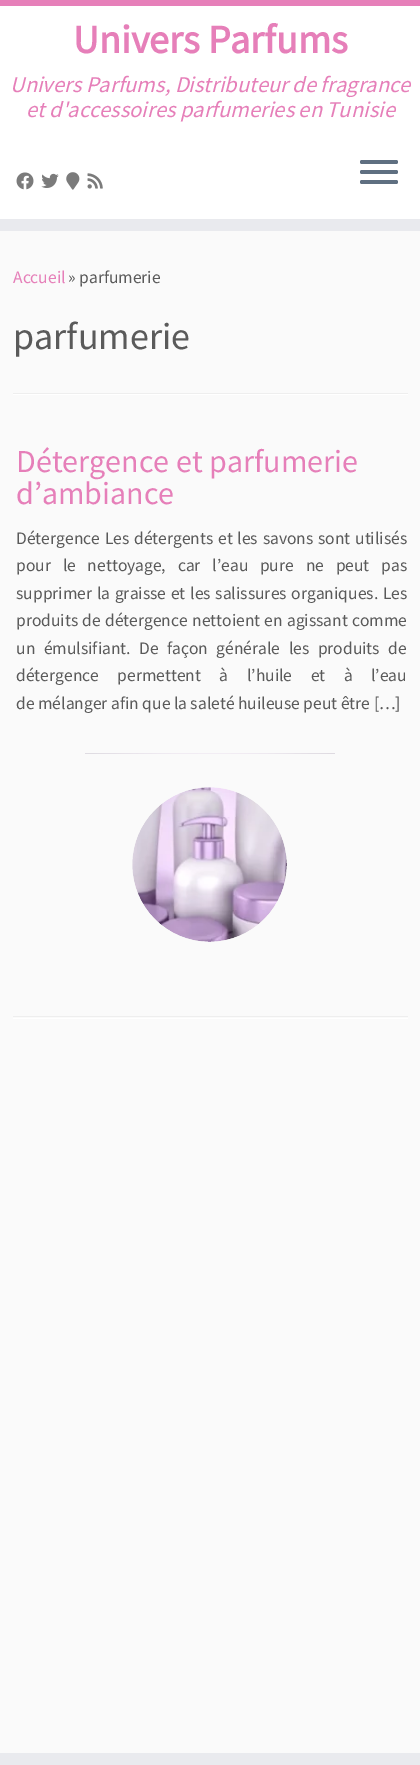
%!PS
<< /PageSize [420 1765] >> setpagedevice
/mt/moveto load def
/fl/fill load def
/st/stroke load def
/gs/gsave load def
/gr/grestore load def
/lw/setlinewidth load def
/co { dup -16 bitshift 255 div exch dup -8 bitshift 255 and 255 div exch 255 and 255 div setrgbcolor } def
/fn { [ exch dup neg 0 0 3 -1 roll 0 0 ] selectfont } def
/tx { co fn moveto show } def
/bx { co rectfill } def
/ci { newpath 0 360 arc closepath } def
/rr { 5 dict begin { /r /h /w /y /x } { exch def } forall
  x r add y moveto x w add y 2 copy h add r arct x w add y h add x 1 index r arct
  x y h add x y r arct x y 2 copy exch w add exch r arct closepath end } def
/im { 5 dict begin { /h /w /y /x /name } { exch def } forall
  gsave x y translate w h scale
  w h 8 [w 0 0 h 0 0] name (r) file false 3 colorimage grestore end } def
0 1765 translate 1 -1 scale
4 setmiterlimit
0 0 420 1765 16#FAFAFA bx
0 6 420 213 16#FFFFFF bx
0 0 420 6 16#E67FB9 bx
0 219 420 12 16#E9EAEE bx
(media/1.raw) 16 172 18 18 im
(media/2.raw) 41 173 18 15 im
(media/3.raw) 66 172 14 18 im
(media/4.raw) 87 173 16 16 im
16#5F6F81 co
360 160 38 4 2 rr fl
360 170 38 4 2 rr fl
360 180 38 4 2 rr fl
13 393 395 1 16#EEEEEE bx
13 394 395 1 16#FFFFFF bx
(media/5.raw) 85 753 250 189 im
13 1016 395 1 16#EEEEEE bx
13 1018 395 1 16#FFFFFF bx
0 1753 420 12 16#E9EAEE bx
(Univers Parfums) 73 53 /SourceSansPro-Bold 40 16#E67FB9 tx
(Univers Parfums, Distributeur de fragrance) 10 92 /SourceSansPro-Italic 22.5 16#E67FB9 tx
(et d'accessoires parfumeries en Tunisie) 26 117 /SourceSansPro-Italic 22.5 16#E67FB9 tx
(Accueil) 13 283 /SourceSansPro-Regular 17.5 16#E67FB9 tx
(» parfumerie) 68 283 /SourceSansPro-Regular 17.5 16#5A5A5A tx
(parfumerie) 13 349 /SourceSansPro-Regular 38 16#5A5A5A tx
(Détergence et parfumerie) 16 472 /SourceSansPro-Regular 32 16#E67FB9 tx
(d’ambiance) 16 504 /SourceSansPro-Regular 32 16#E67FB9 tx
/SourceSansPro-Regular 17.5 fn
16#5A5A5A co
16 544 mt 1.25 0 32 (Détergence Les détergents et les savons sont utilisés) widthshow
16 571 mt 8.25 0 32 (pour le nettoyage, car l’eau pure ne peut pas) widthshow
16 599 mt 1.25 0 32 (supprimer la graisse et les salissures organiques. Les) widthshow
16 626 mt .75 0 32 (produits de détergence nettoient en agissant comme) widthshow
16 654 mt 5 0 32 (un émulsifiant. De façon générale les produits de) widthshow
16 681 mt 15 0 32 (détergence permettent à l’huile et à l’eau) widthshow
(de mélanger afin que la saleté huileuse peut être […]) 16 709 /SourceSansPro-Regular 17.5 16#5A5A5A tx
gs
85 754 250 225 rectclip
16#FAFAFA co
118 lw
209.5 864.5 136.5 ci st
209.5 864.5 136.5 ci st
gr
showpage
